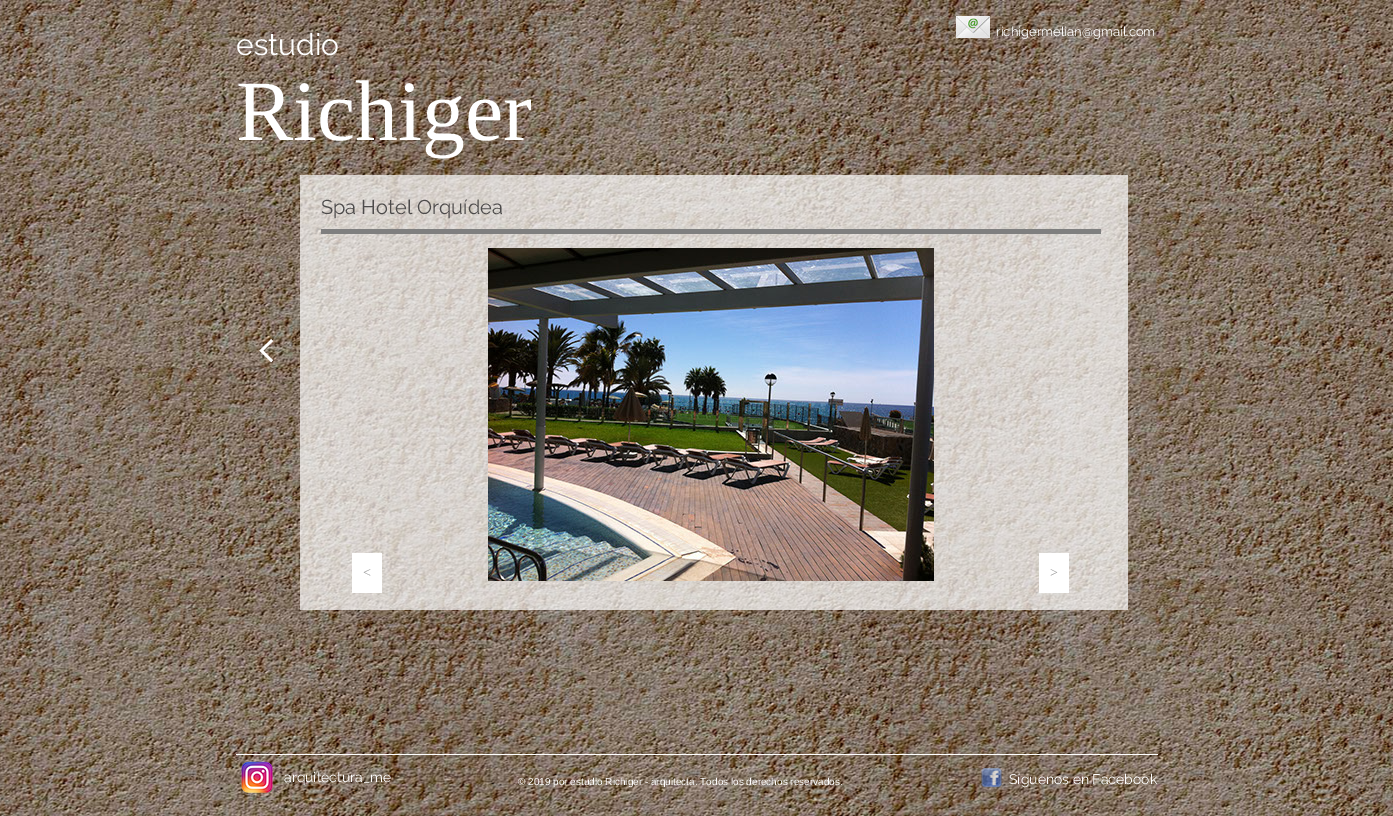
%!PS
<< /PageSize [1393 816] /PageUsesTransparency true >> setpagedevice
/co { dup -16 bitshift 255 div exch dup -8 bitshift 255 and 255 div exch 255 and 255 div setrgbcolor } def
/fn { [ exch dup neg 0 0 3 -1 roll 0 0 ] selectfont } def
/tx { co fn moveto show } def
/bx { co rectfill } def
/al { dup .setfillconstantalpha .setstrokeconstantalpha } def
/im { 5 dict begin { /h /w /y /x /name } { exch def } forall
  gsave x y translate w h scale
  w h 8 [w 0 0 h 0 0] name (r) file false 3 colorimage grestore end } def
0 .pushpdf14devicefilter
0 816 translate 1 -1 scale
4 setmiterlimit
0 0 1393 816 16#FFFFFF bx
(media/1.raw) 0 0 1393 816 im
(media/2.raw) 956 16 34 22 im
0.7 al
300 175 828 435 16#FFFFFF bx
1 al
321 229 780 5 16#7F7F7F bx
(media/3.raw) 259 339 15 24 im
352 553 30 40 16#FFFFFF bx
(media/4.raw) 488 248 446 333 im
1039 553 30 40 16#FFFFFF bx
236 754 922 1 16#FFFFFF bx
(media/5.raw) 241 761 32 32 im
(media/6.raw) 981 768 21 20 im
(estudio) 236 55 /Raleway-Regular 30 16#FFFFFF tx
(Richiger) 236 140 /LiberationSerif-Regular 86 16#FFFFFF tx
(richigermelian@gmail.com) 996 36 /Raleway-Regular 13 16#FFFFFF tx
(Spa Hotel Orquídea) 321 214 /Raleway-Regular 20 16#4D4B4B tx
(<) 363 577 /LiberationSerif-Regular 14 16#999999 tx
(>) 1050 577 /LiberationSerif-Regular 14 16#999999 tx
(arquitectura_me) 284 782 /Raleway-Regular 14 16#FFFFFF tx
(© 2019 por estudio Richiger - arquitecta. Todos los derechos reservados.) 518 785 /LiberationSans-Regular 10 16#FFFFFF tx
(Síguenos en Facebook) 1009 784 /Raleway-Regular 14 16#FFFFFF tx
.poppdf14devicefilter showpage
